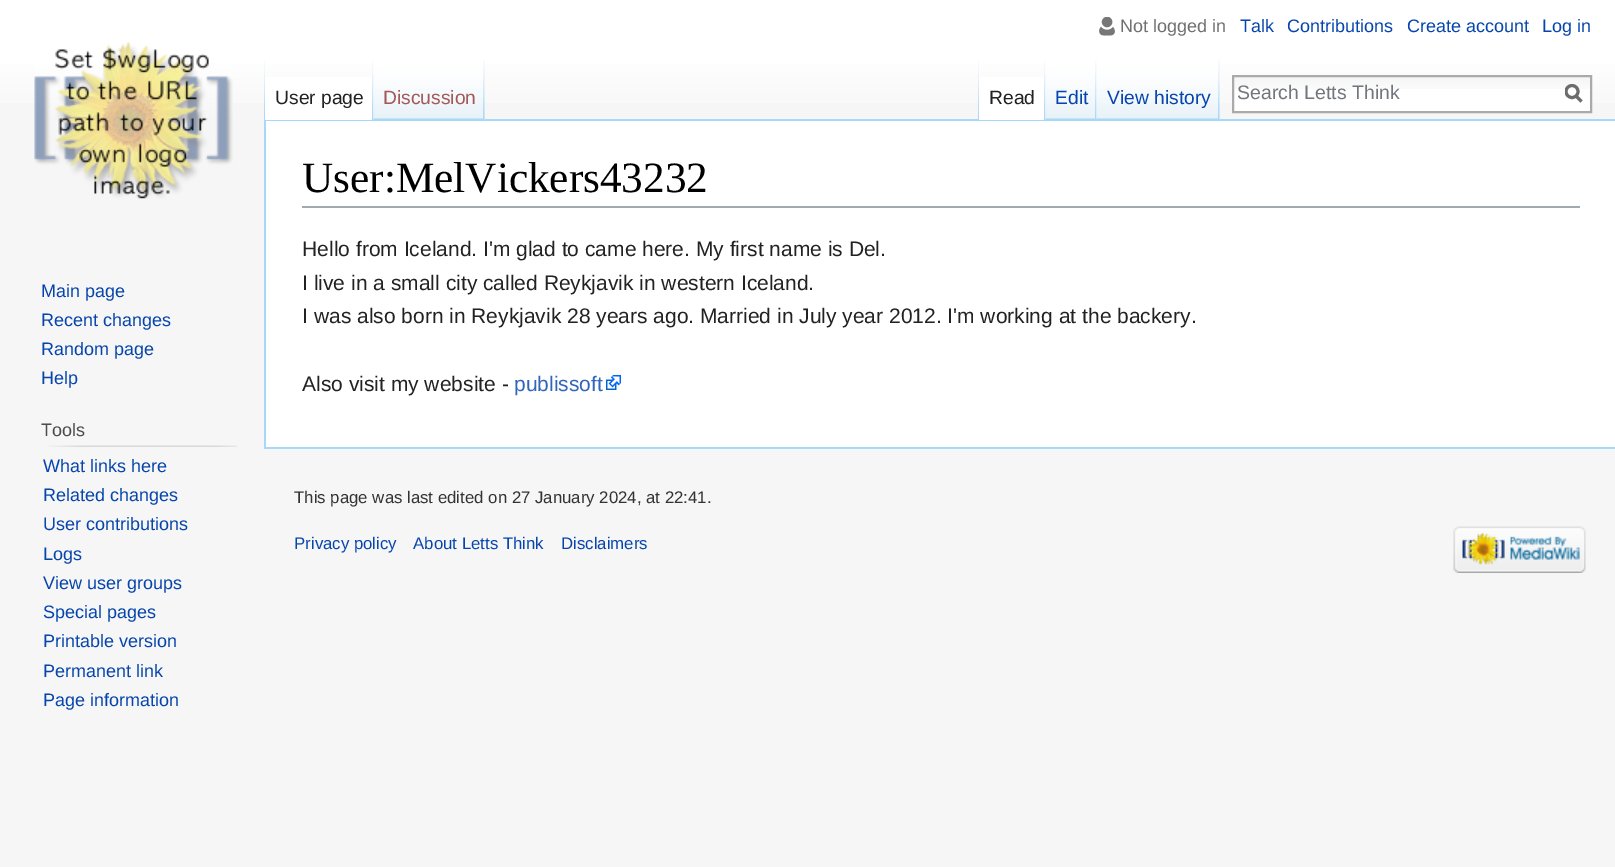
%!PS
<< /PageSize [1615 867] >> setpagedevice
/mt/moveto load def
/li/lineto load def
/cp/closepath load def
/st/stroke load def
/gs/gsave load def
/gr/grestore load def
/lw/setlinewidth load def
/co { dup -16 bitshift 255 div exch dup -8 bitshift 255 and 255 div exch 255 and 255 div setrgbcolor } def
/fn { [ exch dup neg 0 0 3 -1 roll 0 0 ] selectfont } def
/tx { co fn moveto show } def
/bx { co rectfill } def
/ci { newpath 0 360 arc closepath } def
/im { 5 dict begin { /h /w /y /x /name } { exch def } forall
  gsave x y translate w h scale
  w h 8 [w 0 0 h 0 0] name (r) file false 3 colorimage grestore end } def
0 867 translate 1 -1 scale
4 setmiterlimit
0 0 1615 867 16#F6F6F6 bx
gs 0 0 mt 1615 0 li 1615 103 li 0 103 li cp clip newpath
<< /ShadingType 2 /ColorSpace /DeviceRGB /Coords [808 0 808 120] /Extend [true true] /Function << /FunctionType 3 /Domain [0 1] /Functions [<< /FunctionType 2 /Domain [0 1] /C0 [1 1 1] /C1 [1 1 1] /N 1 >> << /FunctionType 2 /Domain [0 1] /C0 [1 1 1] /C1 [.965 .965 .965] /N 1 >>] /Bounds [.5] /Encode [0 1 0 1] >> >> shfill gr
(media/1.raw) 1099 17 16 19 im
(media/2.raw) 264 60 1 59 im
(media/3.raw) 484 60 1 59 im
264 119 1351 2 16#A7D7F9 bx
264 447 1351 2 16#A7D7F9 bx
264 119 2 330 16#A7D7F9 bx
265 77 109 43 16#FFFFFF bx
(media/4.raw) 372 60 2 60 im
(media/5.raw) 373 60 112 60 im
(media/6.raw) 483 60 2 60 im
(media/2.raw) 978 60 1 59 im
(media/3.raw) 1219 60 1 59 im
979 77 67 43 16#FFFFFF bx
(media/4.raw) 1044 60 2 60 im
(media/7.raw) 1045 60 52 60 im
(media/6.raw) 1095 60 2 60 im
(media/8.raw) 1096 60 124 60 im
(media/6.raw) 1218 60 2 60 im
1234 89 356 22 16#FFFFFF bx
(media/9.raw) 1234 77 356 12 im
16#AAAAAA co
2 lw
1233 76 358 36 rectstroke
16#6C6C6C co
3 lw
1581.5 101.5 mt 1575.5 95.5 li st
gs
1565 84 18 20 rectclip
1572 91.5 6 ci st
gr
(media/10.raw) 34 42 199 157 im
(media/11.raw) 47 445 190 2 im
266 121 1349 326 16#FFFFFF bx
302 206 1278 2 16#A2A9B1 bx
(media/12.raw) 606 375 15 15 im
(media/13.raw) 1453 526 133 47 im
(Not logged in) 1120 32 /LiberationSans-Regular 18 16#707070 tx
(Talk) 1240 32 /LiberationSans-Regular 18 16#0645AD tx
(Contributions) 1287 32 /LiberationSans-Regular 18 16#0645AD tx
(Create account) 1407 32 /LiberationSans-Regular 18 16#0645AD tx
(Log in) 1542 32 /LiberationSans-Regular 18 16#0645AD tx
(User page) 275 104 /LiberationSans-Regular 19.25 16#222222 tx
(Discussion) 383 104 /LiberationSans-Regular 19.25 16#A55858 tx
(Read) 989 104 /LiberationSans-Regular 19.25 16#222222 tx
(Edit) 1055 104 /LiberationSans-Regular 19.25 16#0645AD tx
(View history) 1107 104 /LiberationSans-Regular 19.25 16#0645AD tx
(Search Letts Think) 1237 99 /LiberationSans-Regular 19.5 16#72777D tx
(Main page) 41 297 /LiberationSans-Regular 18 16#0645AD tx
(Recent changes) 41 326 /LiberationSans-Regular 18 16#0645AD tx
(Random page) 41 355 /LiberationSans-Regular 18 16#0645AD tx
(Help) 41 384 /LiberationSans-Regular 18 16#0645AD tx
(Tools) 41 436 /LiberationSans-Regular 18 16#4D4D4D tx
(What links here) 43 472 /LiberationSans-Regular 18 16#0645AD tx
(Related changes) 43 501 /LiberationSans-Regular 18 16#0645AD tx
(User contributions) 43 530 /LiberationSans-Regular 18 16#0645AD tx
(Logs) 43 560 /LiberationSans-Regular 18 16#0645AD tx
(View user groups) 43 589 /LiberationSans-Regular 18 16#0645AD tx
(Special pages) 43 618 /LiberationSans-Regular 18 16#0645AD tx
(Printable version) 43 647 /LiberationSans-Regular 18 16#0645AD tx
(Permanent link) 43 677 /LiberationSans-Regular 18 16#0645AD tx
(Page information) 43 706 /LiberationSans-Regular 18 16#0645AD tx
(User:MelVickers43232) 302 192 /LiberationSerif-Regular 43.25 16#000000 tx
(Hello from Iceland. I'm glad to came here. My first name is Del.) 302 256 /LiberationSans-Regular 21 16#222222 tx
(I live in a small city called Reykjavik in western Iceland.) 302 290 /LiberationSans-Regular 21 16#222222 tx
(I was also born in Reykjavik 28 years ago. Married in July year 2012. I'm working at the backery.) 302 323 /LiberationSans-Regular 21 16#222222 tx
(Also visit my website -) 302 391 /LiberationSans-Regular 21 16#222222 tx
(publissoft) 514 391 /LiberationSans-Regular 21 16#3366BB tx
(This page was last edited on 27 January 2024, at 22:41.) 294 503 /LiberationSans-Regular 16.8 16#333333 tx
(Privacy policy) 294 549 /LiberationSans-Regular 16.8 16#0645AD tx
(About Letts Think) 413 549 /LiberationSans-Regular 16.8 16#0645AD tx
(Disclaimers) 561 549 /LiberationSans-Regular 16.8 16#0645AD tx
showpage
